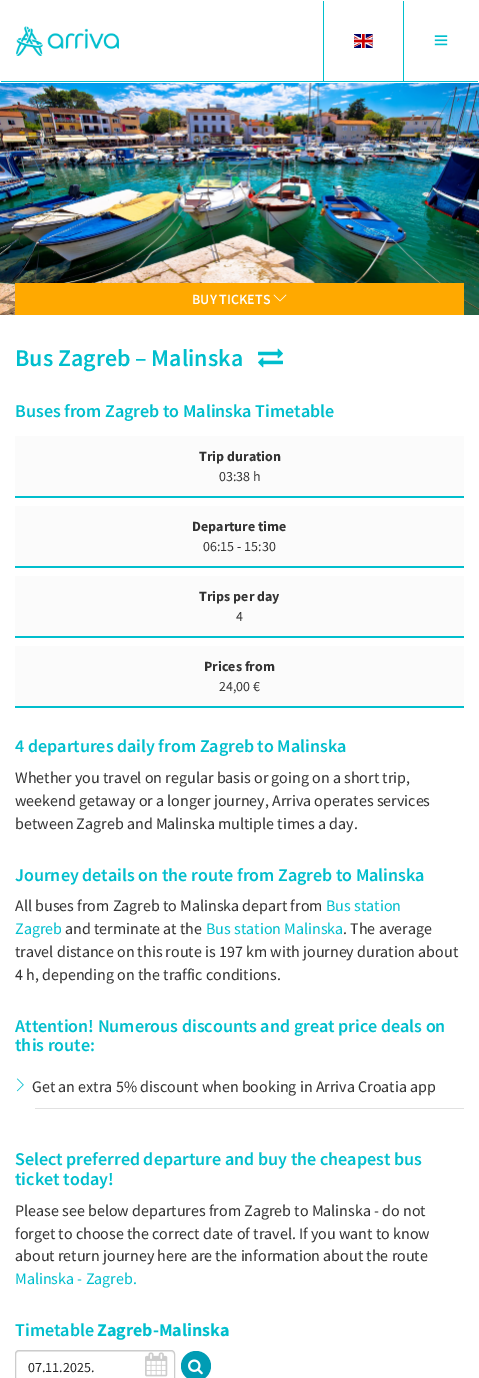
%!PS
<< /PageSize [479 1378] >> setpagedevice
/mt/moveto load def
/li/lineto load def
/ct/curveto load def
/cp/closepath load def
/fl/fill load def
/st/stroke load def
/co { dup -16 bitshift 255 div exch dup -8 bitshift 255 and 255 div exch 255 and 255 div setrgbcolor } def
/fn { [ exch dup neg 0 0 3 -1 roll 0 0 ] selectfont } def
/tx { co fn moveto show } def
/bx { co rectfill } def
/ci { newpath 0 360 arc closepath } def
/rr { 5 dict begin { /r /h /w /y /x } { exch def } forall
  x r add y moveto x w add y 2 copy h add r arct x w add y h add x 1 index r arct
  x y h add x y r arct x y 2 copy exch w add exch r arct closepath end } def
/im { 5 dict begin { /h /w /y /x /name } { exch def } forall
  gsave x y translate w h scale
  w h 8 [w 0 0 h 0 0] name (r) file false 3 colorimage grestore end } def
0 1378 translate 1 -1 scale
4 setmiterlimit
0 0 479 1378 16#FFFFFF bx
1 81 477 1 16#00BECD bx
(media/1.raw) 16 26 103 30 im
323 1 1 80 16#00BECD bx
(media/2.raw) 354 34 19 14 im
403 1 1 80 16#00BECD bx
(media/3.raw) 434 35 14 11 im
(media/4.raw) 0 83 479 232 im
15 283 449 32 16#FFA900 bx
(media/5.raw) 273 294 14 8 im
(media/6.raw) 258 348 25 20 im
15 436 449 60 16#FBFBFB bx
15 496 449 2 16#00BECD bx
15 506 449 60 16#FBFBFB bx
15 566 449 2 16#00BECD bx
15 576 449 60 16#FBFBFB bx
15 636 449 2 16#00BECD bx
15 646 449 60 16#FBFBFB bx
15 706 449 2 16#00BECD bx
35 1108 429 1 16#E1E1E1 bx
(media/7.raw) 16 1078 8 14 im
16#ECECEC co
19 1352 mt 171 1352 li 173 1352 174 1353 174 1355 ct 174 1353 173 1351 171 1351 ct 18 1351 li 16 1351 16 1353 16 1355 ct 16 1353 17 1352 19 1352 ct cp fl
16#CCCCCC co
15.5 1350.5 159 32 3.5 rr st
(media/8.raw) 145 1352 23 25 im
16#009CB4 co
196 1366 15 ci fl
(media/9.raw) 188 1359 15 16 im
(BUY TICKETS) 192 304 /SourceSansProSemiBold-SemiBold 14 16#FFFFFF tx
(Bus Zagreb – Malinska) 15 366 /SourceSansProSemiBold-SemiBold 24 16#00BECD tx
(Buses from Zagreb to Malinska Timetable) 15 417 /SourceSansProSemiBold-SemiBold 18 16#00BECD tx
(Trip duration) 199 461 /SourceSansPro-Bold 14 16#333333 tx
(03:38 h) 219 481 /SourceSansPro-Regular 14 16#333333 tx
(Departure time) 192 531 /SourceSansPro-Bold 14 16#333333 tx
(06:15 - 15:30) 203 551 /SourceSansPro-Regular 14 16#333333 tx
(Trips per day) 199 601 /SourceSansPro-Bold 14 16#333333 tx
(4) 236 621 /SourceSansPro-Regular 14 16#333333 tx
(Prices from) 204 671 /SourceSansPro-Bold 14 16#333333 tx
(24,00 €) 219 691 /SourceSansPro-Regular 14 16#333333 tx
(4 departures daily from Zagreb to Malinska) 15 752 /SourceSansProSemiBold-SemiBold 18 16#00BECD tx
(Whether you travel on regular basis or going on a short trip,) 15 783 /SourceSansPro-Regular 16 16#333333 tx
(weekend getaway or a longer journey, Arriva operates services) 15 806 /SourceSansPro-Regular 16 16#333333 tx
(between Zagreb and Malinska multiple times a day.) 15 829 /SourceSansPro-Regular 16 16#333333 tx
(Journey details on the route from Zagreb to Malinska) 15 881 /SourceSansProSemiBold-SemiBold 18 16#00BECD tx
(All buses from Zagreb to Malinska depart from) 15 911 /SourceSansPro-Regular 16 16#333333 tx
(Bus station) 326 911 /SourceSansPro-Regular 16 16#00BECD tx
(Zagreb) 15 934 /SourceSansPro-Regular 16 16#00BECD tx
(and terminate at the) 65 934 /SourceSansPro-Regular 16 16#333333 tx
(Bus station Malinska) 206 934 /SourceSansPro-Regular 16 16#00BECD tx
(. The average) 343 934 /SourceSansPro-Regular 16 16#333333 tx
(travel distance on this route is 197 km with journey duration about) 15 957 /SourceSansPro-Regular 16 16#333333 tx
(4 h, depending on the traffic conditions.) 15 980 /SourceSansPro-Regular 16 16#333333 tx
(Attention! Numerous discounts and great price deals on) 15 1032 /SourceSansProSemiBold-SemiBold 18 16#00BECD tx
(this route:) 15 1051 /SourceSansProSemiBold-SemiBold 18 16#00BECD tx
(Get an extra 5% discount when booking in Arriva Croatia app) 32 1092 /SourceSansPro-Regular 16 16#333333 tx
(Select preferred departure and buy the cheapest bus) 15 1165 /SourceSansProSemiBold-SemiBold 18 16#00BECD tx
(ticket today!) 15 1185 /SourceSansProSemiBold-SemiBold 18 16#00BECD tx
(Please see below departures from Zagreb to Malinska - do not) 15 1216 /SourceSansPro-Regular 16 16#333333 tx
(forget to choose the correct date of travel. If you want to know) 15 1239 /SourceSansPro-Regular 16 16#333333 tx
(about return journey here are the information about the route) 15 1261 /SourceSansPro-Regular 16 16#333333 tx
(Malinska - Zagreb.) 15 1284 /SourceSansPro-Regular 16 16#00BECD tx
(Timetable) 15 1336 /SourceSansProSemiBold-SemiBold 18 16#00BECD tx
(Zagreb-Malinska) 97 1336 /SourceSansPro-Bold 18 16#00BECD tx
(07.11.2025.) 28 1372 /SourceSansPro-Regular 14 16#222222 tx
showpage
